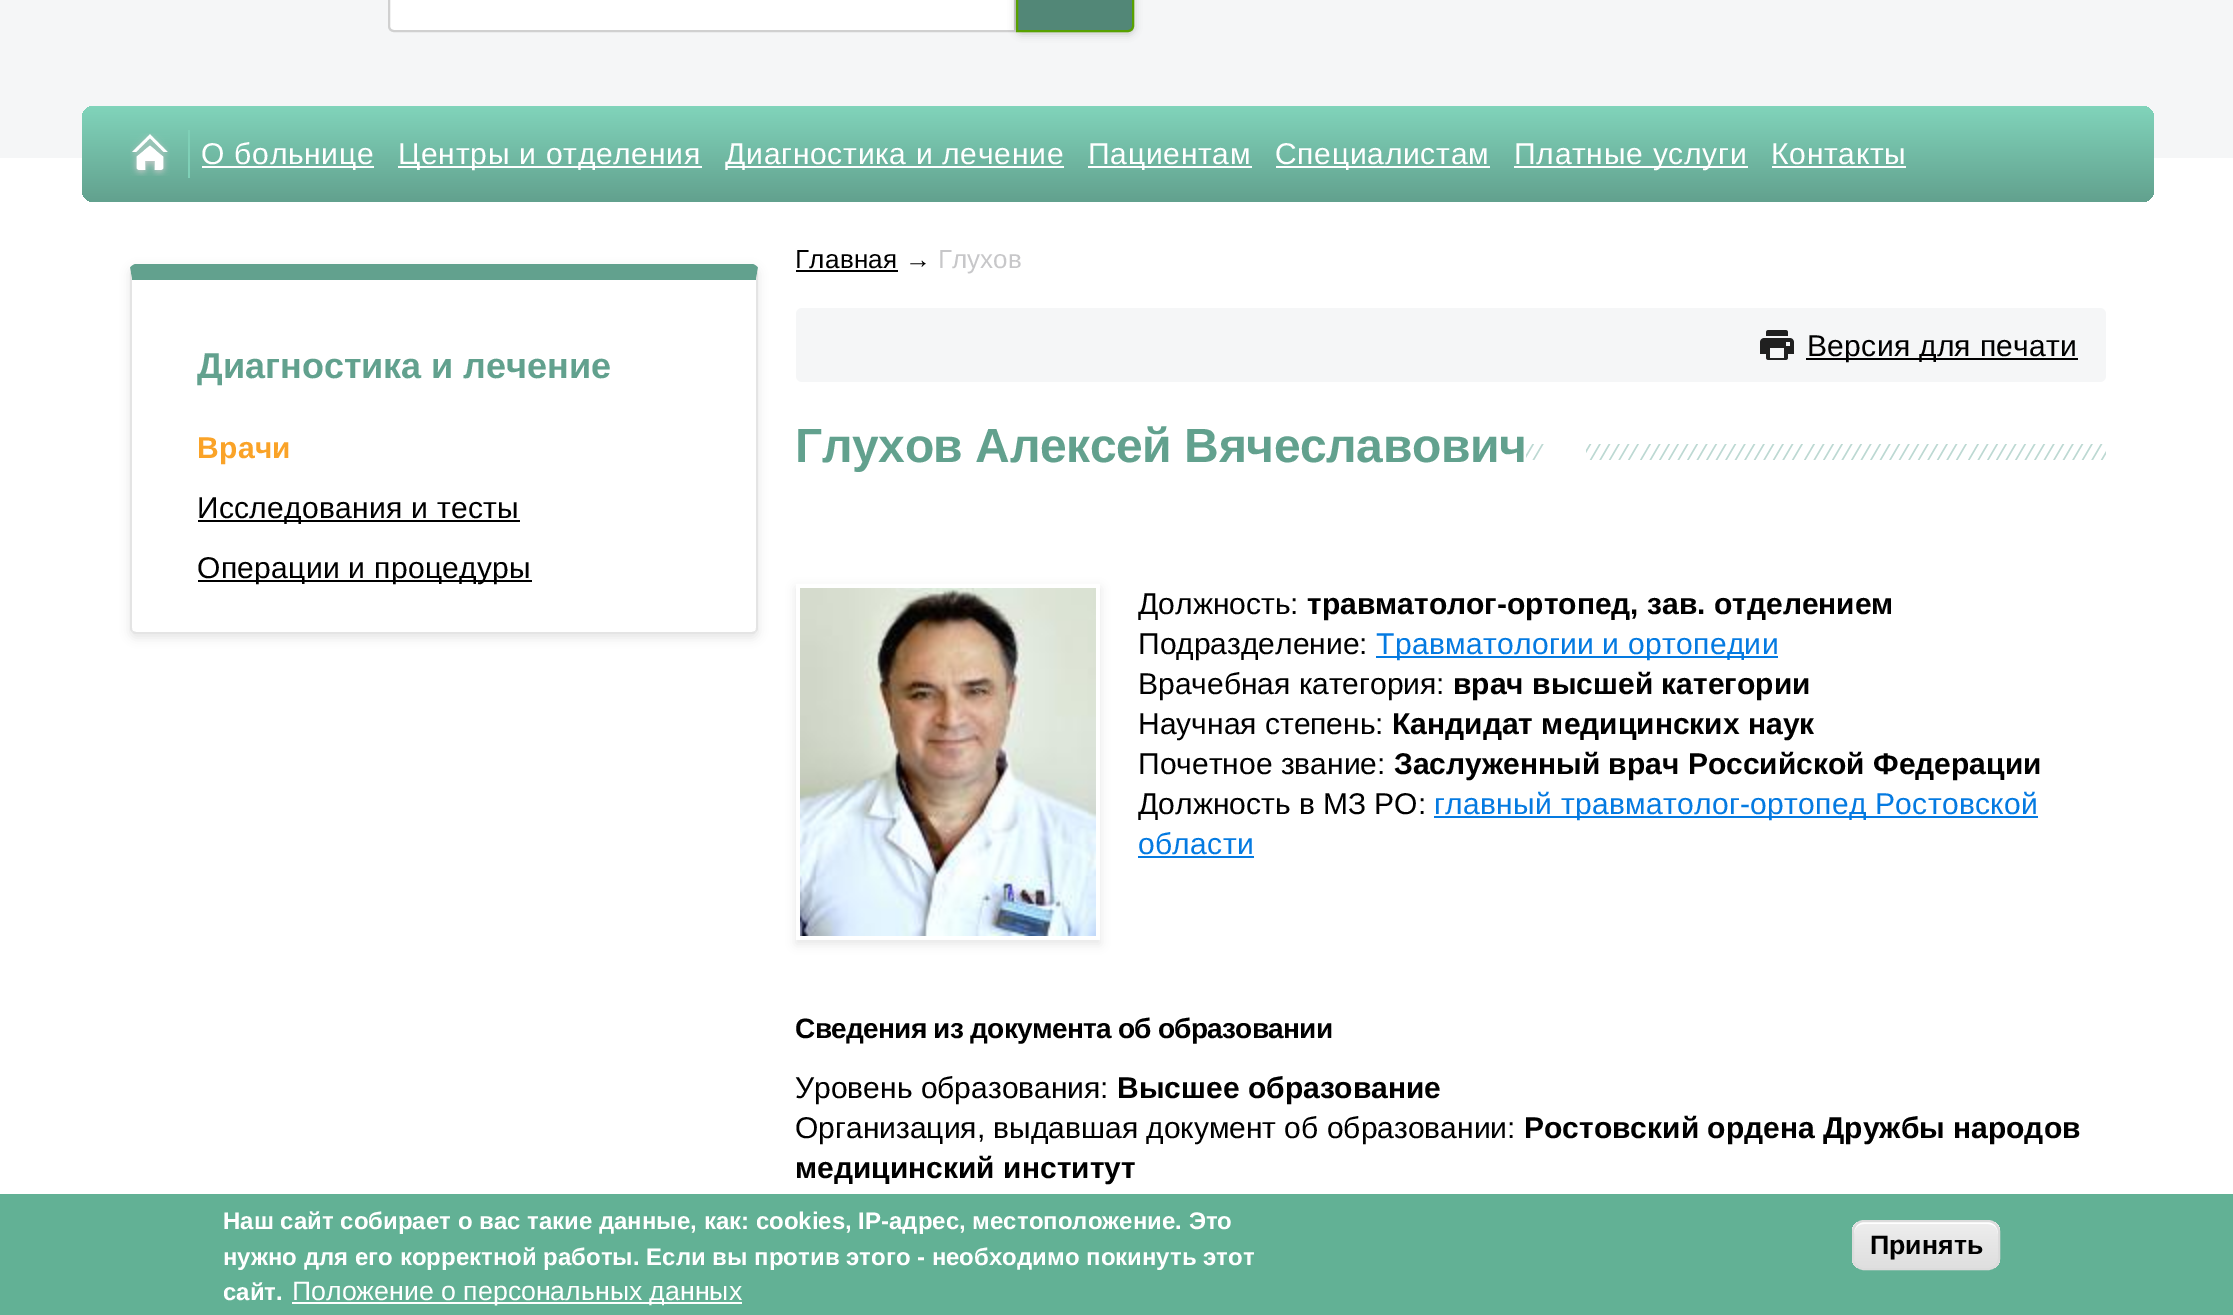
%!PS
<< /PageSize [2233 1315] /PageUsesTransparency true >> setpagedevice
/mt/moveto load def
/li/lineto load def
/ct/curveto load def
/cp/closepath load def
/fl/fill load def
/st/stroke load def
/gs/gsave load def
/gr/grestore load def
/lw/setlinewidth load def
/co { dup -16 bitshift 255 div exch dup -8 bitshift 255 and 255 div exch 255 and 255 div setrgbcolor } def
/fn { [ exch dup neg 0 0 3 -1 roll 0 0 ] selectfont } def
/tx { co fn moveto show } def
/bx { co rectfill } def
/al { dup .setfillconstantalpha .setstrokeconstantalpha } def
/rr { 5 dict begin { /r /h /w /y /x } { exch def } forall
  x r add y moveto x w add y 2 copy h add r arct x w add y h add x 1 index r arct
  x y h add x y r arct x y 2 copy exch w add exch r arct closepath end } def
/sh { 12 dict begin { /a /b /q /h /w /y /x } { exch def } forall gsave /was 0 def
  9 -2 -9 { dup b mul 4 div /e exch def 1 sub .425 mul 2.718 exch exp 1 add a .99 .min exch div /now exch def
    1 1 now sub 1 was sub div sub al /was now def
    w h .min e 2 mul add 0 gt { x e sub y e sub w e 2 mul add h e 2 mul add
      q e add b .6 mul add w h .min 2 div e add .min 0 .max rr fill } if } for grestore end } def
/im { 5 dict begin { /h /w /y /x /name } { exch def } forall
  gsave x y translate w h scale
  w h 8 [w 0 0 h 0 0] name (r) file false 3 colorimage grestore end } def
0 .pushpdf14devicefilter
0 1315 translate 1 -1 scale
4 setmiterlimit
0 0 2233 1315 16#FFFFFF bx
0 0 2233 158 16#F5F6F7 bx
16#FFFFFF co
394 -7 mt 1015 -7 li 1015 31 li 394 31 li 391 31 389 29 389 26 ct 389 -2 li 389 -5 391 -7 394 -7 ct cp gs fl gr
16#D0D0D0 co
2 lw
st
16#000000 co
1016 -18 118 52 6 4 .2 sh
16#528777 co
1017 -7 mt 1128 -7 li 1131 -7 1133 -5 1133 -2 ct 1133 26 li 1133 29 1131 31 1128 31 ct 1017 31 li cp gs fl gr
16#58A100 co
st
gs 82 106 2072 96 12 rr clip newpath
<< /ShadingType 2 /ColorSpace /DeviceRGB /Coords [1118 202 1118 106] /Extend [true true] /Function << /FunctionType 2 /Domain [0 1] /C0 [.384 .631 .557] /C1 [.506 .831 .733] /N 1 >> >> shfill gr
188 130 2 48 16#7FD0B7 bx
(media/1.raw) 130 133 40 43 im
202 166 172 2 16#FFFFFF bx
398 166 304 2 16#FFFFFF bx
726 166 338 2 16#FFFFFF bx
1088 166 164 2 16#FFFFFF bx
1276 166 214 2 16#FFFFFF bx
1514 166 234 2 16#FFFFFF bx
1772 166 134 2 16#FFFFFF bx
gs
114 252 mt 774 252 li 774 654 li 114 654 li cp 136 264 mt 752 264 li 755.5 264 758 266.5 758 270 ct 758 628 li 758 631.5 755.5 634 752 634 ct 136 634 li 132.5 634 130 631.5 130 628 ct 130 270 li 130 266.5 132.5 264 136 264 ct cp eoclip newpath
16#E4E4E4 co
130 268 628 370 6 5 1 sh
gr
16#62A18E co
136 264 mt 134 264 131 266 130 268 ct 132 280 li 756 280 li 758 268 li 757 266 754 264 752 264 ct cp fl
16#E4E4E4 co
758 628 mt 758 270 li 758 268 li 756 280 li 756 628 li 756 629 756 630 755 631 ct 756 632 li 757 631 758 630 758 628 ct cp fl
136 634 mt 752 634 li 754 634 755 633 756 632 ct 755 631 li 752 632 li 136 632 li 133 631 li 132 632 li 133 633 134 634 136 634 ct cp fl
130 270 mt 130 628 li 130 630 131 631 132 632 ct 133 631 li 132 630 132 629 132 628 ct 132 280 li 130 268 li cp fl
198 520 322 2 16#000000 bx
198 580 334 2 16#000000 bx
796 270 102 2 16#000000 bx
16#F5F6F7 co
796 308 1310 74 6 rr fl
(media/2.raw) 1760 330 34 30 im
1806 358 272 2 16#000000 bx
(media/3.raw) 1526 444 580 16 im
1546 444 40 16 16#FFFFFF bx
1559 424 mt 1599 424 li 1573 470 li 1533 470 li cp fl
gs
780 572 mt 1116 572 li 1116 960 li 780 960 li cp 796 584 mt 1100 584 li 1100 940 li 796 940 li cp eoclip newpath
16#E4E4E4 co
796 588 304 356 0 5 1 sh
gr
(media/4.raw) 800 588 296 348 im
1376 656 402 2 16#047AE1 bx
1434 816 604 2 16#047AE1 bx
1138 856 116 2 16#047AE1 bx
0 1194 2233 121 16#62B195 bx
292 1302 450 2 16#FFFFFF bx
gs
1852 1220 148 50 12 rr clip newpath
gs 1852 1222 mt 2000 1222 li 2000 1268 li 1852 1268 li cp clip newpath
<< /ShadingType 2 /ColorSpace /DeviceRGB /Coords [1926 1222 1926 1268] /Extend [true true] /Function << /FunctionType 3 /Domain [0 1] /Functions [<< /FunctionType 2 /Domain [0 1] /C0 [.929 .929 .929] /C1 [.929 .929 .929] /N 1 >> << /FunctionType 2 /Domain [0 1] /C0 [.929 .929 .929] /C1 [.875 .875 .875] /N 1 >>] /Bounds [.05] /Encode [0 1 0 1] >> >> shfill gr
gr
1864 1224 mt 1988 1224 li 1994 1224 1998 1228 1998 1234 ct 1998 1217 1979 1222 1967 1222 ct 1885 1222 li 1873 1222 1854 1217 1854 1234 ct 1854 1228 1858 1224 1864 1224 ct cp fl
16#DCDCDC co
1853 1221 146 48 11 rr st
/LiberationSans-Regular 30 fn
16#FFFFFF co
201 164 mt .75 0 (О больнице) ashow
398 164 mt .75 0 (Центры и отделения) ashow
725 164 mt .75 0 (Диагностика и лечение) ashow
1088 164 mt .75 0 (Пациентам) ashow
1275 164 mt .75 0 (Специалистам) ashow
1514 164 mt .75 0 (Платные услуги) ashow
1771 164 mt .75 0 (Контакты) ashow
(Диагностика и лечение) 197 378 /LiberationSans-Bold 36 16#62A18E tx
/LiberationSans-Bold 30 fn
16#FAA328 co
197 458 mt .3 0 (Врачи) ashow
/LiberationSans-Regular 30 fn
16#000000 co
197 518 mt .3 0 (Исследования и тесты) ashow
197 578 mt .3 0 (Операции и процедуры) ashow
/LiberationSans-Regular 26 fn
795 268 mt .3 0 (Главная) ashow
(→) 905 268 /LiberationSans-Regular 26 16#000000 tx
(Глухов) 938 268 /LiberationSans-Regular 26 16#C7C7C9 tx
/LiberationSans-Regular 30 fn
16#000000 co
1807 356 mt .3 0 (Версия для печати) ashow
/LiberationSans-Bold 48 fn
16#62A18E co
795 462 mt -.4 0 (Глухов Алексей Вячеславович) ashow
(Должность:) 1138 614 /LiberationSans-Regular 30 16#000000 tx
(травматолог-ортопед, зав. отделением) 1307 614 /LiberationSans-Bold 30 16#000000 tx
(Подразделение:) 1138 654 /LiberationSans-Regular 30 16#000000 tx
16#047AE1 co
1376 654 mt .3 0 (Травматологии и ортопедии) ashow
(Врачебная категория:) 1138 694 /LiberationSans-Regular 30 16#000000 tx
(врач высшей категории) 1453 694 /LiberationSans-Bold 30 16#000000 tx
(Научная степень:) 1138 734 /LiberationSans-Regular 30 16#000000 tx
(Кандидат медицинских наук) 1392 734 /LiberationSans-Bold 30 16#000000 tx
(Почетное звание:) 1138 774 /LiberationSans-Regular 30 16#000000 tx
(Заслуженный врач Российской Федерации) 1394 774 /LiberationSans-Bold 30 16#000000 tx
(Должность в МЗ РО:) 1138 814 /LiberationSans-Regular 30 16#000000 tx
16#047AE1 co
1434 814 mt .3 0 (главный травматолог-ортопед Ростовской) ashow
1138 854 mt .3 0 (области) ashow
/LiberationSans-Bold 28 fn
16#000000 co
795 1038 mt -.7 0 (Сведения из документа об образовании) ashow
(Уровень образования:) 795 1098 /LiberationSans-Regular 30 16#000000 tx
(Высшее образование) 1117 1098 /LiberationSans-Bold 30 16#000000 tx
(Организация, выдавшая документ об образовании:) 795 1138 /LiberationSans-Regular 30 16#000000 tx
(Ростовский ордена Дружбы народов) 1524 1138 /LiberationSans-Bold 30 16#000000 tx
(медицинский институт) 795 1178 /LiberationSans-Bold 30 16#000000 tx
(Наш сайт собирает о вас такие данные, как: cookies, IP-адрес, местоположение. Это) 223 1229 /LiberationSans-Bold 24 16#FFFFFF tx
(нужно для его корректной работы. Если вы против этого - необходимо покинуть этот) 223 1265 /LiberationSans-Bold 24 16#FFFFFF tx
(сайт.) 223 1300 /LiberationSans-Bold 24 16#FFFFFF tx
(Положение о персональных данных) 292 1300 /LiberationSans-Regular 26.7 16#FFFFFF tx
(Принять) 1870 1254 /LiberationSans-Bold 26.7 16#000000 tx
.poppdf14devicefilter showpage
